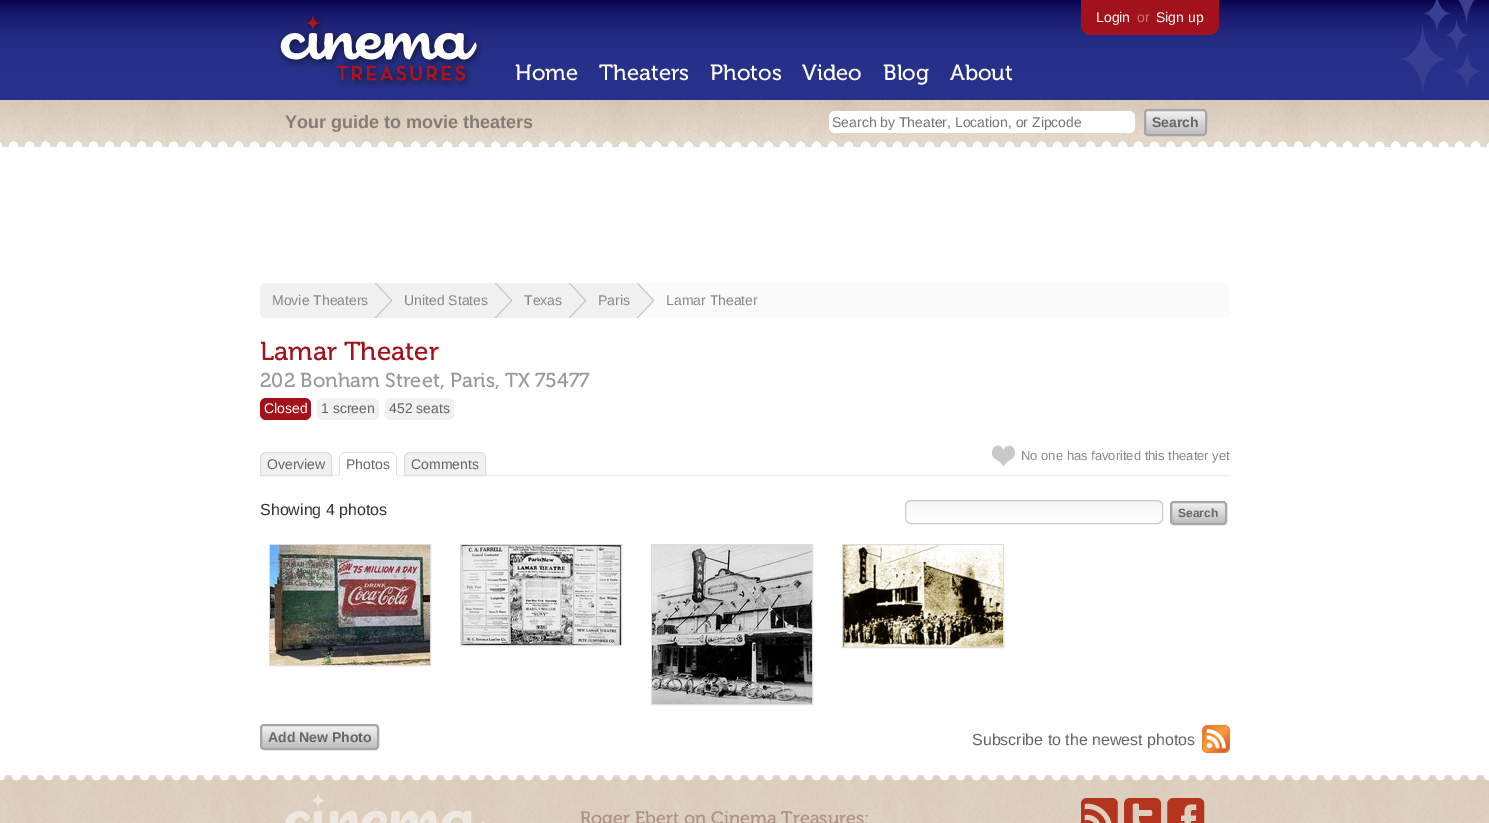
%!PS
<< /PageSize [1489 823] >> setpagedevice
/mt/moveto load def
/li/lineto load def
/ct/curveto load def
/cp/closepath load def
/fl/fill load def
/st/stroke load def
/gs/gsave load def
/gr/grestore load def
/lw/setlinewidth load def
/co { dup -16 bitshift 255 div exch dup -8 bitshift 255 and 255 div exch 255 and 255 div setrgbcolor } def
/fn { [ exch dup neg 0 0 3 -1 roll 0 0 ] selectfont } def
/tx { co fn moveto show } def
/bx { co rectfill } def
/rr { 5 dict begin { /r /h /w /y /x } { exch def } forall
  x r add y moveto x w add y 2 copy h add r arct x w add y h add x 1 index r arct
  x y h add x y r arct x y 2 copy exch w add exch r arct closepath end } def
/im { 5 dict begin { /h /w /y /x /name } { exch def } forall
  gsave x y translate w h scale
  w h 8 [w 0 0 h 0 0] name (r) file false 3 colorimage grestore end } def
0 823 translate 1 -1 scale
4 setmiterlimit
0 0 1489 823 16#FFFFFF bx
(media/1.raw) 0 0 1489 100 im
(media/2.raw) 277 15 206 73 im
16#A3121B co
1081 0 mt 1219 0 li 1219 25 li 1219 30.5 1214.5 35 1209 35 ct 1091 35 li 1085.5 35 1081 30.5 1081 25 ct cp fl
(media/3.raw) 1399 0 81 93 im
(media/4.raw) 0 100 1489 48 im
16#FFFFFF co
829 111 306 22 6 rr fl
gs 1146 111 59 23 2 rr clip newpath
<< /ShadingType 2 /ColorSpace /DeviceRGB /Coords [1176 111 1176 134] /Extend [true true] /Function << /FunctionType 2 /Domain [0 1] /C0 [.949 .949 .949] /C1 [.741 .741 .741] /N 1 >> >> shfill gr
16#A6A6A6 co
2 lw
1145 110 61 25 3 rr st
16#FAFAFA co
260 283 970 35 6 rr fl
16#F1F1F1 co
266 283 mt 392 283 li 392 318 li 266 318 li 262.5 318 260 315.5 260 312 ct 260 289 li 260 285.5 262.5 283 266 283 ct cp fl
(media/5.raw) 374 283 18 35 im
392 283 262 35 16#F1F1F1 bx
(media/5.raw) 494 283 18 35 im
(media/5.raw) 568 283 18 35 im
(media/6.raw) 636 283 18 35 im
16#A3121B co
260 398 51 22 6 rr fl
16#F1F1F1 co
317 398 62 22 6 rr fl
385 398 69 22 6 rr fl
332 475 898 1 16#EEEEEE bx
16#F1F1F1 co
266 452.5 mt 326 452.5 li 329 452.5 331.5 455 331.5 458 ct 331.5 475.5 li 260.5 475.5 li 260.5 458 li 260.5 455 263 452.5 266 452.5 ct cp gs fl gr
16#DDDDDD co
1 lw
st
16#FFFFFF co
345 452 mt 391 452 li 394.5 452 397 454.5 397 458 ct 397 476 li 339 476 li 339 458 li 339 454.5 341.5 452 345 452 ct cp fl
16#DDDDDD co
345 452 mt 344 452 342 453 341 454 ct 342 454 344 453 345 453 ct 391 453 li 392 453 394 454 395 454 ct 394 453 392 452 391 452 ct cp 397 476 mt 397 458 li 397 456.5 396 455 395 454 ct 394.5 454.5 li 395.5 455 396 456.5 396 458 ct 396 475 li cp fl
16#FFFFFF co
397 476 mt 396 475 li 340 475 li 339 476 li cp fl
16#DDDDDD co
339 476 mt 340 475 li 340 458 li 340 456.5 340.5 455 341.5 454.5 ct 341 454 li 340 455 339 456.5 339 458 ct cp fl
16#F1F1F1 co
410 452.5 mt 480 452.5 li 483 452.5 485.5 455 485.5 458 ct 485.5 475.5 li 404.5 475.5 li 404.5 458 li 404.5 455 407 452.5 410 452.5 ct cp gs fl gr
16#DDDDDD co
st
(media/7.raw) 992 445 23 22 im
gs
905 500 258 24 6 rr clip newpath
gs 905 501 mt 1163 501 li 1163 523 li 905 523 li cp clip newpath
<< /ShadingType 2 /ColorSpace /DeviceRGB /Coords [1034 501 1034 523] /Extend [true true] /Function << /FunctionType 2 /Domain [0 1] /C0 [.965 .965 .965] /C1 [1 1 1] /N 1 >> >> shfill gr
gr
16#CCCCCC co
905.5 500.5 257 23 5.5 rr st
gs 1172 503 53 20 2 rr clip newpath
<< /ShadingType 2 /ColorSpace /DeviceRGB /Coords [1199 503 1199 523] /Extend [true true] /Function << /FunctionType 2 /Domain [0 1] /C0 [.949 .949 .949] /C1 [.741 .741 .741] /N 1 >> >> shfill gr
16#A6A6A6 co
2 lw
1171 502 55 22 3 rr st
16#DDDDDD co
1 lw
269.5 544.5 161 121 rectstroke
(media/8.raw) 270 545 160 120 im
460.5 544.5 161 101 rectstroke
(media/9.raw) 461 545 160 100 im
651.5 544.5 161 160 rectstroke
(media/10.raw) 652 545 160 159 im
842.5 544.5 161 103 rectstroke
(media/11.raw) 843 545 160 102 im
gs 262 726 115 22 2 rr clip newpath
<< /ShadingType 2 /ColorSpace /DeviceRGB /Coords [320 726 320 748] /Extend [true true] /Function << /FunctionType 2 /Domain [0 1] /C0 [.949 .949 .949] /C1 [.741 .741 .741] /N 1 >> >> shfill gr
16#A6A6A6 co
2 lw
261 725 117 24 3 rr st
(media/12.raw) 1202 725 28 28 im
(media/13.raw) 0 775 1489 48 im
(media/14.raw) 285 792 200 31 im
(media/15.raw) 1081 798 37 25 im
(media/16.raw) 1124 798 37 25 im
(media/17.raw) 1167 798 38 25 im
(Home) 515 80 /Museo-Regular 22 16#FFFFFF tx
(Theaters) 599 80 /Museo-Regular 22 16#FFFFFF tx
(Photos) 710 80 /Museo-Regular 22 16#FFFFFF tx
(Video) 802 80 /Museo-Regular 22 16#FFFFFF tx
(Blog) 883 80 /Museo-Regular 22 16#FFFFFF tx
(About) 950 80 /Museo-Regular 22 16#FFFFFF tx
(Login) 1096 22 /LiberationSans-Regular 14 16#FFFFFF tx
(or) 1137 22 /LiberationSans-Regular 14 16#C87176 tx
(Sign up) 1156 22 /LiberationSans-Regular 14 16#FFFFFF tx
(Your guide to movie theaters) 285 128 /LiberationSans-Bold 18 16#857D74 tx
(Search by Theater, Location, or Zipcode) 832 127 /LiberationSans-Regular 14 16#757575 tx
(Search) 1152 127 /LiberationSans-Bold 14 16#666666 tx
(Movie Theaters) 272 305 /LiberationSans-Regular 14 16#888888 tx
(United States) 404 305 /LiberationSans-Regular 14 16#888888 tx
(Texas) 524 305 /LiberationSans-Regular 14 16#888888 tx
(Paris) 598 305 /LiberationSans-Regular 14 16#888888 tx
(Lamar Theater) 666 305 /LiberationSans-Regular 14 16#888888 tx
(Lamar Theater) 260 360 /Museo-Regular 26 16#A3121B tx
(202 Bonham Street, Paris, TX 75477) 260 387 /Museo-Regular 20 16#999999 tx
(Closed) 264 413 /LiberationSans-Regular 14 16#FFFFFF tx
(1 screen) 321 413 /LiberationSans-Regular 14 16#666666 tx
(452 seats) 389 413 /LiberationSans-Regular 14 16#666666 tx
(Overview) 267 469 /LiberationSans-Regular 14 16#666666 tx
(Photos) 346 469 /LiberationSans-Regular 14 16#666666 tx
(Comments) 411 469 /LiberationSans-Regular 14 16#666666 tx
(No one has favorited this theater yet) 1021 460 /LiberationSans-Regular 13 16#888888 tx
(Showing 4 photos) 260 515 /LiberationSans-Regular 16 16#333333 tx
(Search) 1178 517 /LiberationSans-Bold 12 16#666666 tx
(Add New Photo) 268 742 /LiberationSans-Bold 14 16#666666 tx
(Subscribe to the newest photos) 972 745 /LiberationSans-Regular 16 16#666666 tx
(Roger Ebert on Cinema Treasures:) 580 824 /Museo-Regular 18 16#A99382 tx
showpage
